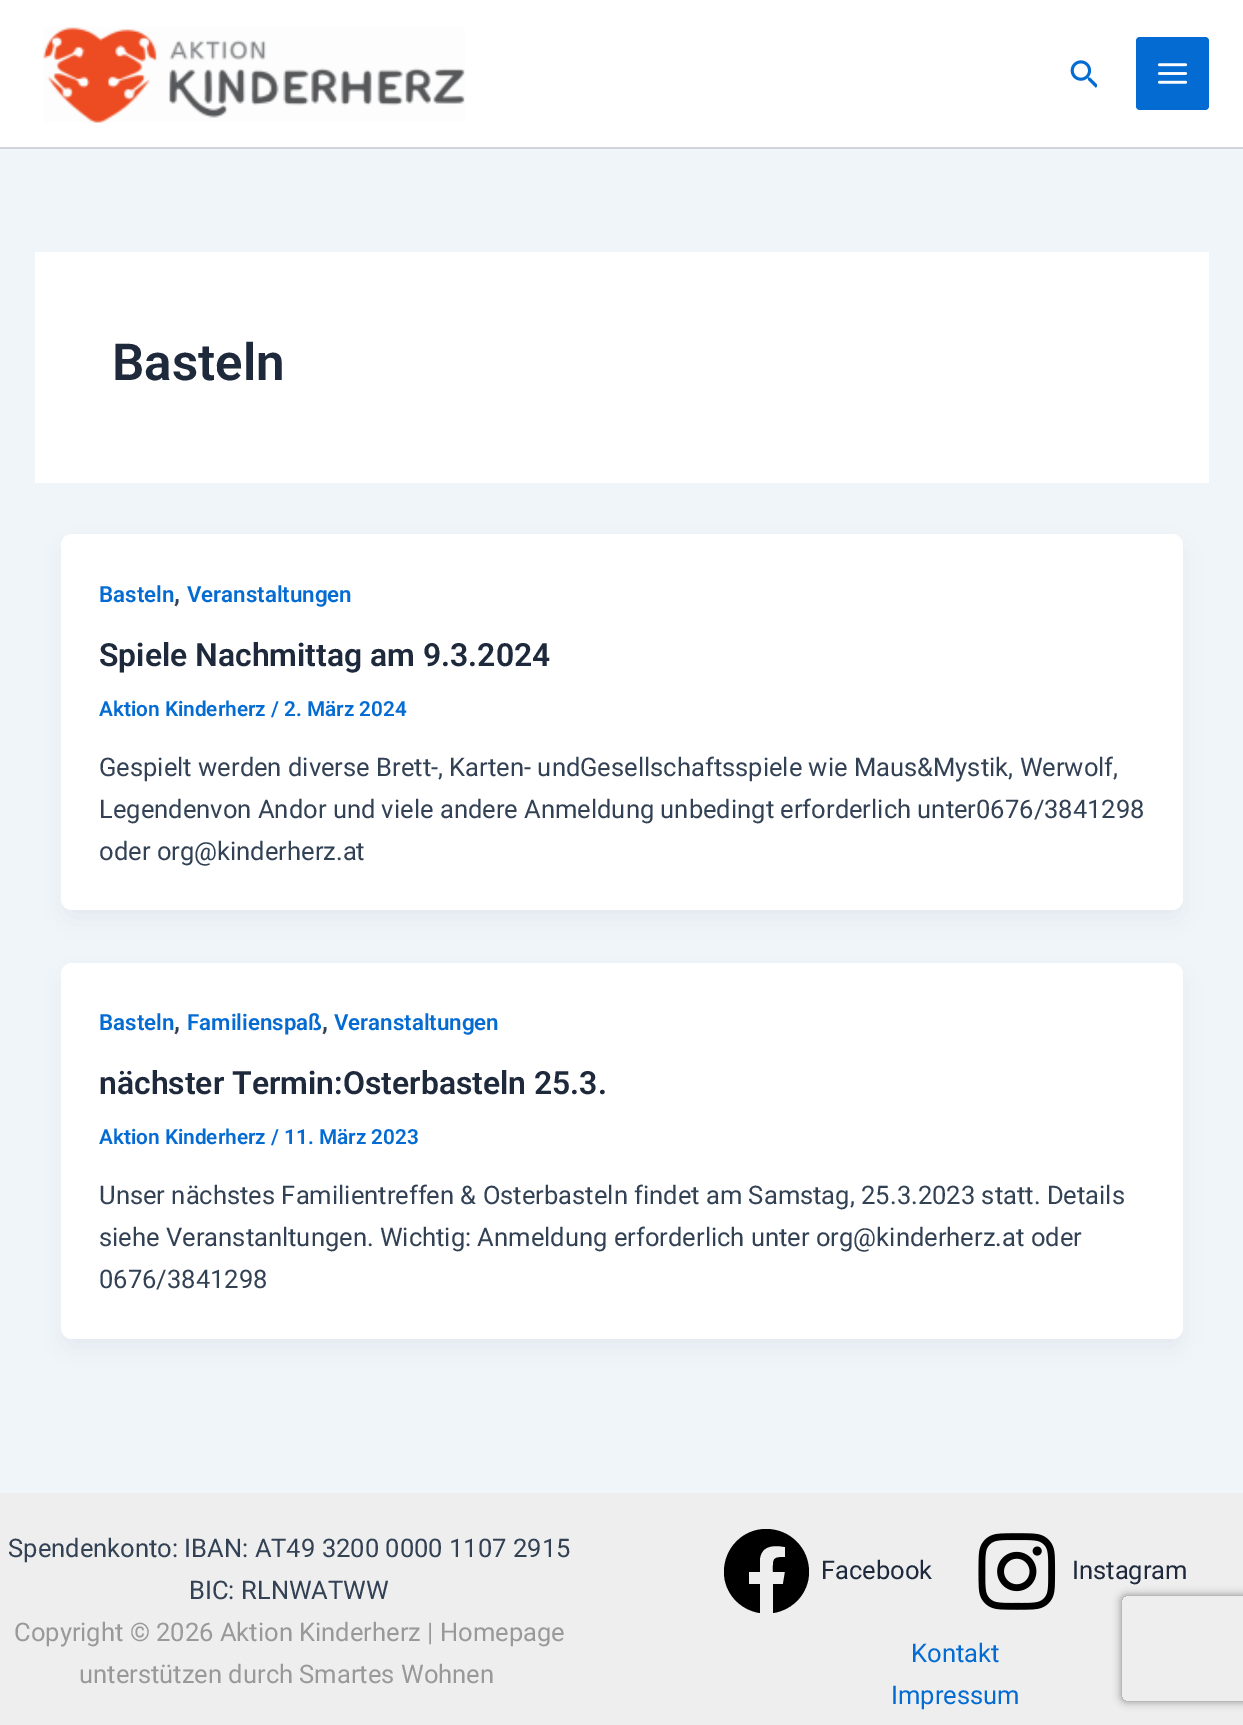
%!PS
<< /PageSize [1243 1725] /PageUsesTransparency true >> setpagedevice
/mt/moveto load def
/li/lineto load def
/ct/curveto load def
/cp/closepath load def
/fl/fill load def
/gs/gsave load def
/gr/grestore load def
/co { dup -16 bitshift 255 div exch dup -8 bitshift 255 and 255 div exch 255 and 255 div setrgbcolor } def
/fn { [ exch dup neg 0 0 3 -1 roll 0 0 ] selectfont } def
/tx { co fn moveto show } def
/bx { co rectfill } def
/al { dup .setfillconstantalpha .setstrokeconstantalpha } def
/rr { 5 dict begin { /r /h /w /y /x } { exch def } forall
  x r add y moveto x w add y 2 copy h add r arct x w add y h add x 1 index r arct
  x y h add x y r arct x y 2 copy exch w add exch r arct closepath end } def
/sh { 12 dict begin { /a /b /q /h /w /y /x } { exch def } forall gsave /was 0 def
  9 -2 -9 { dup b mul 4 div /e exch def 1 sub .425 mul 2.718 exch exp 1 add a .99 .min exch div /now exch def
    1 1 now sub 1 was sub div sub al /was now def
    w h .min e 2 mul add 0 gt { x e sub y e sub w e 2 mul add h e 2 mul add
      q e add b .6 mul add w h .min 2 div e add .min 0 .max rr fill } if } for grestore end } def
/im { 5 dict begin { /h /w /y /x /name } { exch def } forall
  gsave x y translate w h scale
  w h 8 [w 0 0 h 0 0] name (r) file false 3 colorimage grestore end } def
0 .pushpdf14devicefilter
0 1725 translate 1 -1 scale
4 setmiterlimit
0 0 1243 1725 16#F0F5FA bx
0 0 1243 147 16#FFFFFF bx
0 147 1243 2 16#D1D5DB bx
(media/1.raw) 43 27 422 96 im
(media/2.raw) 1070 60 27 28 im
16#046BD2 co
1136 37 73 73 4 rr fl
(media/3.raw) 1157 63 31 21 im
35 252 1174 231 16#FFFFFF bx
16#101828 co
65 548 1115 369 7 13 .05 sh
16#FFFFFF co
61 534 1122 376 11 rr fl
16#101828 co
65 977 1115 369 7 13 .05 sh
16#FFFFFF co
61 963 1122 376 11 rr fl
0 1493 1243 232 16#EEEEEE bx
16#000000 co
809 1572 mt 809 1548 790 1529 766 1529 ct 743 1529 724 1548 724 1572 ct 724 1593 740 1610 760 1613 ct 760 1584 li 749 1584 li 749 1572 li 760 1572 li 760 1558 li 762 1545 775 1545 785 1547 ct 785 1557 li 772 1557 773 1559 773 1572 ct 785 1572 li 783 1584 li 773 1584 li 773 1613 li 793 1610 809 1593 809 1572 ct cp fl
(media/4.raw) 978 1533 78 77 im
gs
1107 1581 mt 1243 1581 li 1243 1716 li 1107 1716 li cp 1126 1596 mt 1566 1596 li 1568 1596 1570 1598 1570 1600 ct 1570 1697 li 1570 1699 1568 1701 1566 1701 ct 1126 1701 li 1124 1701 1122 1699 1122 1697 ct 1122 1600 li 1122 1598 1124 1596 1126 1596 ct cp eoclip newpath
16#808080 co
1122 1596 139 105 4 4.5 1 sh
gr
(Basteln) 112 380 /Roboto-SemiBold 51 16#1E293B tx
(Basteln) 99 602 /Roboto-SemiBold 22.25 16#046BD2 tx
(,) 174 602 /Roboto-SemiBold 25.55 16#334155 tx
(Veranstaltungen) 187 602 /Roboto-SemiBold 22.25 16#046BD2 tx
(Spiele Nachmittag am 9.3.2024) 99 666 /Roboto-SemiBold 31.9 16#1E293B tx
(Aktion Kinderherz / 2. März 2024) 99 716 /Roboto-SemiBold 20.75 16#046BD2 tx
(Gespielt werden diverse Brett-, Karten- undGesellschaftsspiele wie Maus&Mystik, Werwolf,) 99 776 /Roboto-Regular 25.55 16#334155 tx
(Legendenvon Andor und viele andere Anmeldung unbedingt erforderlich unter0676/3841298) 99 818 /Roboto-Regular 25.55 16#334155 tx
(oder org@kinderherz.at) 99 860 /Roboto-Regular 25.55 16#334155 tx
(Basteln) 99 1030 /Roboto-SemiBold 22.25 16#046BD2 tx
(,) 174 1030 /Roboto-SemiBold 25.55 16#334155 tx
(Familienspaß) 187 1030 /Roboto-SemiBold 22.25 16#046BD2 tx
(,) 322 1030 /Roboto-SemiBold 25.55 16#334155 tx
(Veranstaltungen) 334 1030 /Roboto-SemiBold 22.25 16#046BD2 tx
(nächster Termin:Osterbasteln 25.3.) 99 1094 /Roboto-SemiBold 31.9 16#1E293B tx
(Aktion Kinderherz / 11. März 2023) 99 1144 /Roboto-SemiBold 20.75 16#046BD2 tx
(Unser nächstes Familientreffen & Osterbasteln findet am Samstag, 25.3.2023 statt. Details) 99 1204 /Roboto-Regular 25.55 16#334155 tx
(siehe Veranstanltungen. Wichtig: Anmeldung erforderlich unter org@kinderherz.at oder) 99 1246 /Roboto-Regular 25.55 16#334155 tx
(0676/3841298) 99 1288 /Roboto-Regular 25.55 16#334155 tx
(Spendenkonto: IBAN: AT49 3200 0000 1107 2915) 8 1557 /Roboto-Regular 25.55 16#334155 tx
(BIC: RLNWATWW) 189 1599 /Roboto-Regular 25.55 16#334155 tx
(Copyright © 2026 Aktion Kinderherz | Homepage) 14 1641 /Roboto-Regular 25.55 16#999999 tx
(unterstützen durch Smartes Wohnen) 79 1683 /Roboto-Regular 25.55 16#999999 tx
(Facebook) 821 1579 /Roboto-Regular 25.55 16#1E293B tx
(Instagram) 1072 1579 /Roboto-Regular 25.55 16#1E293B tx
(Kontakt) 911 1662 /Roboto-Regular 25.55 16#046BD2 tx
(Impressum) 891 1704 /Roboto-Regular 25.55 16#046BD2 tx
.poppdf14devicefilter showpage
